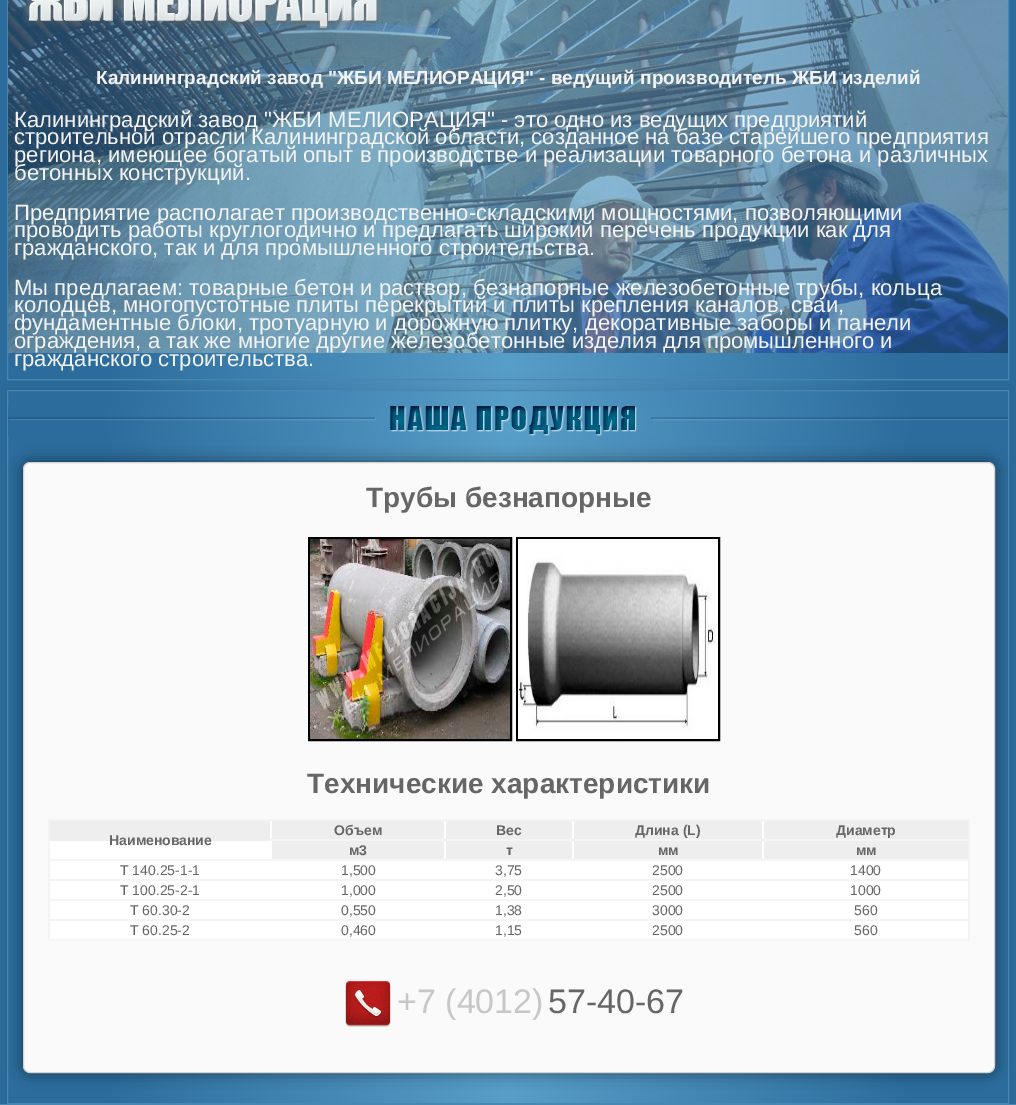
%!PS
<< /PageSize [1016 1105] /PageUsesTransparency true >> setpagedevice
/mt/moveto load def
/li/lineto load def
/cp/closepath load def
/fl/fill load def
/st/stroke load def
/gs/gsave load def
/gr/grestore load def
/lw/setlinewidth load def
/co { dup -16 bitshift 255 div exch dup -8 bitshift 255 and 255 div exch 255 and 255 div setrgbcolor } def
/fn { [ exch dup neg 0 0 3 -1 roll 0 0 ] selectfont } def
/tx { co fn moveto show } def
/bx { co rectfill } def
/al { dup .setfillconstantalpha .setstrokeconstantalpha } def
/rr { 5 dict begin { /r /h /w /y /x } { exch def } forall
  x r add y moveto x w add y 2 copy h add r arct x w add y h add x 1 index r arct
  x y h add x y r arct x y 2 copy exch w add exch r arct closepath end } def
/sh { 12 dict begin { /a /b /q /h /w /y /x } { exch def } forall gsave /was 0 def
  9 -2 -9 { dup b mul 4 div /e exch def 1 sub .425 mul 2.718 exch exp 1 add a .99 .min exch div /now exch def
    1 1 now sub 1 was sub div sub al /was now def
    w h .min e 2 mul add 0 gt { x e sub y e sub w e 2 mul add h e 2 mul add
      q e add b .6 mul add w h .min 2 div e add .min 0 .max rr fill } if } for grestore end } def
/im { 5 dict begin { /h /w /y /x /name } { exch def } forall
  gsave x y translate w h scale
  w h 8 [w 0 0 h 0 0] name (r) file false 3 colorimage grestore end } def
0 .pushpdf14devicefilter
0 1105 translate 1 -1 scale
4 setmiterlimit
0 0 1016 1105 16#FFFFFF bx
gs 0 0 mt 1016 0 li 1016 1104 li 0 1104 li cp clip newpath
<< /ShadingType 2 /ColorSpace /DeviceRGB /Coords [0 529 1016 529] /Extend [true true] /Function << /FunctionType 3 /Domain [0 1] /Functions [<< /FunctionType 2 /Domain [0 1] /C0 [.173 .424 .612] /C1 [.173 .424 .612] /N 1 >> << /FunctionType 2 /Domain [0 1] /C0 [.173 .424 .612] /C1 [.341 .62 .784] /N 1 >> << /FunctionType 2 /Domain [0 1] /C0 [.341 .62 .784] /C1 [.173 .424 .612] /N 1 >> << /FunctionType 2 /Domain [0 1] /C0 [.173 .424 .612] /C1 [.173 .424 .612] /N 1 >>] /Bounds [.1 .5 .9] /Encode [0 1 0 1 0 1 0 1] >> >> shfill gr
16#4688B2 co
7.5 -.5 1001 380 rectstroke
(media/1.raw) 8 0 1000 353 im
(media/2.raw) 22 0 361 34 im
gs
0 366 mt 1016 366 li 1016 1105 li 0 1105 li cp 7 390 mt 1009 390 li 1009 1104 li 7 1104 li cp eoclip newpath
16#000000 co
7 390 1002 714 0 7.5 .1 sh
gr
7.5 390.5 1001 713 rectstroke
(media/3.raw) 8 406 1000 30 im
16#000000 co
23 462 972 611 7 7.5 .5 sh
16#FAFAFA co
23.5 462.5 971 610 6.5 rr gs fl gr
16#D3D1D1 co
st
16#000000 co
2 lw
309 538 202 202 rectstroke
517 538 202 202 rectstroke
(media/4.raw) 310 539 200 200 im
(media/5.raw) 518 539 200 200 im
48 819 922 122 16#F4F4F4 bx
270 821 494 18 16#FFFFFF bx
272 821 172 18 16#EEEEEE bx
446 821 126 18 16#EEEEEE bx
574 821 188 18 16#EEEEEE bx
764 821 204 18 16#EEEEEE bx
50 821 220 20 16#EEEEEE bx
50 841 714 18 16#FFFFFF bx
272 841 172 18 16#EEEEEE bx
446 841 126 18 16#EEEEEE bx
574 841 188 18 16#EEEEEE bx
764 841 204 18 16#EEEEEE bx
50 861 918 18 16#FFFFFF bx
50 881 918 18 16#FFFFFF bx
50 901 918 18 16#FFFFFF bx
50 921 918 18 16#FFFFFF bx
(media/6.raw) 345 981 46 46 im
0 1104 1016 1 16#4688B2 bx
(Калининградский завод "ЖБИ МЕЛИОРАЦИЯ" - ведущий производитель ЖБИ изделий) 96 84 /LiberationSans-Bold 19 16#F3F3F3 tx
(Калининградский завод "ЖБИ МЕЛИОРАЦИЯ" - это одно из ведущих предприятий) 14 127 /LiberationSans-Regular 22.1 16#F3F3F3 tx
(строительной отрасли Калининградской области, созданное на базе старейшего предприятия) 14 144 /LiberationSans-Regular 22.1 16#F3F3F3 tx
(региона, имеющее богатый опыт в производстве и реализации товарного бетона и различных) 14 162 /LiberationSans-Regular 22.1 16#F3F3F3 tx
(бетонных конструкций.) 14 180 /LiberationSans-Regular 22.1 16#F3F3F3 tx
(Предприятие располагает производственно-складскими мощностями, позволяющими) 14 220 /LiberationSans-Regular 22.1 16#F3F3F3 tx
(проводить работы круглогодично и предлагать широкий перечень продукции как для) 14 237 /LiberationSans-Regular 22.1 16#F3F3F3 tx
(гражданского, так и для промышленного строительства.) 14 255 /LiberationSans-Regular 22.1 16#F3F3F3 tx
(Мы предлагаем: товарные бетон и раствор, безнапорные железобетонные трубы, кольца) 14 295 /LiberationSans-Regular 22.1 16#F3F3F3 tx
(колодцев, многопустотные плиты перекрытий и плиты крепления каналов, сваи,) 14 312 /LiberationSans-Regular 22.1 16#F3F3F3 tx
(фундаментные блоки, тротуарную и дорожную плитку, декоративные заборы и панели) 14 330 /LiberationSans-Regular 22.1 16#F3F3F3 tx
(ограждения, а так же многие другие железобетонные изделия для промышленного и) 14 348 /LiberationSans-Regular 22.1 16#F3F3F3 tx
(гражданского строительства.) 14 366 /LiberationSans-Regular 22.1 16#F3F3F3 tx
(Трубы безнапорные) 366 507 /LiberationSans-Bold 28 16#666666 tx
(Технические характеристики) 307 793 /LiberationSans-Bold 28 16#666666 tx
(Объем) 334 835 /LiberationSans-Bold 14 16#666666 tx
(Вес) 496 835 /LiberationSans-Bold 14 16#666666 tx
(Длина \(L\)) 635 835 /LiberationSans-Bold 14 16#666666 tx
(Диаметр) 836 835 /LiberationSans-Bold 14 16#666666 tx
(Наименование) 109 845 /LiberationSans-Bold 14 16#666666 tx
(м3) 349 855 /LiberationSans-Bold 14 16#666666 tx
(т) 506 855 /LiberationSans-Bold 14 16#666666 tx
(мм) 658 855 /LiberationSans-Bold 14 16#666666 tx
(мм) 856 855 /LiberationSans-Bold 14 16#666666 tx
(Т 140.25-1-1) 120 875 /LiberationSans-Regular 14 16#666666 tx
(1,500) 341 875 /LiberationSans-Regular 14 16#666666 tx
(3,75) 495 875 /LiberationSans-Regular 14 16#666666 tx
(2500) 652 875 /LiberationSans-Regular 14 16#666666 tx
(1400) 850 875 /LiberationSans-Regular 14 16#666666 tx
(Т 100.25-2-1) 120 895 /LiberationSans-Regular 14 16#666666 tx
(1,000) 341 895 /LiberationSans-Regular 14 16#666666 tx
(2,50) 495 895 /LiberationSans-Regular 14 16#666666 tx
(2500) 652 895 /LiberationSans-Regular 14 16#666666 tx
(1000) 850 895 /LiberationSans-Regular 14 16#666666 tx
(Т 60.30-2) 130 915 /LiberationSans-Regular 14 16#666666 tx
(0,550) 341 915 /LiberationSans-Regular 14 16#666666 tx
(1,38) 495 915 /LiberationSans-Regular 14 16#666666 tx
(3000) 652 915 /LiberationSans-Regular 14 16#666666 tx
(560) 854 915 /LiberationSans-Regular 14 16#666666 tx
(Т 60.25-2) 130 935 /LiberationSans-Regular 14 16#666666 tx
(0,460) 341 935 /LiberationSans-Regular 14 16#666666 tx
(1,15) 495 935 /LiberationSans-Regular 14 16#666666 tx
(2500) 652 935 /LiberationSans-Regular 14 16#666666 tx
(560) 854 935 /LiberationSans-Regular 14 16#666666 tx
(+7 \(4012\)) 397 1013 /LiberationSans-Regular 34 16#C7C7C7 tx
(57-40-67) 548 1013 /LiberationSans-Regular 34 16#666666 tx
.poppdf14devicefilter showpage
